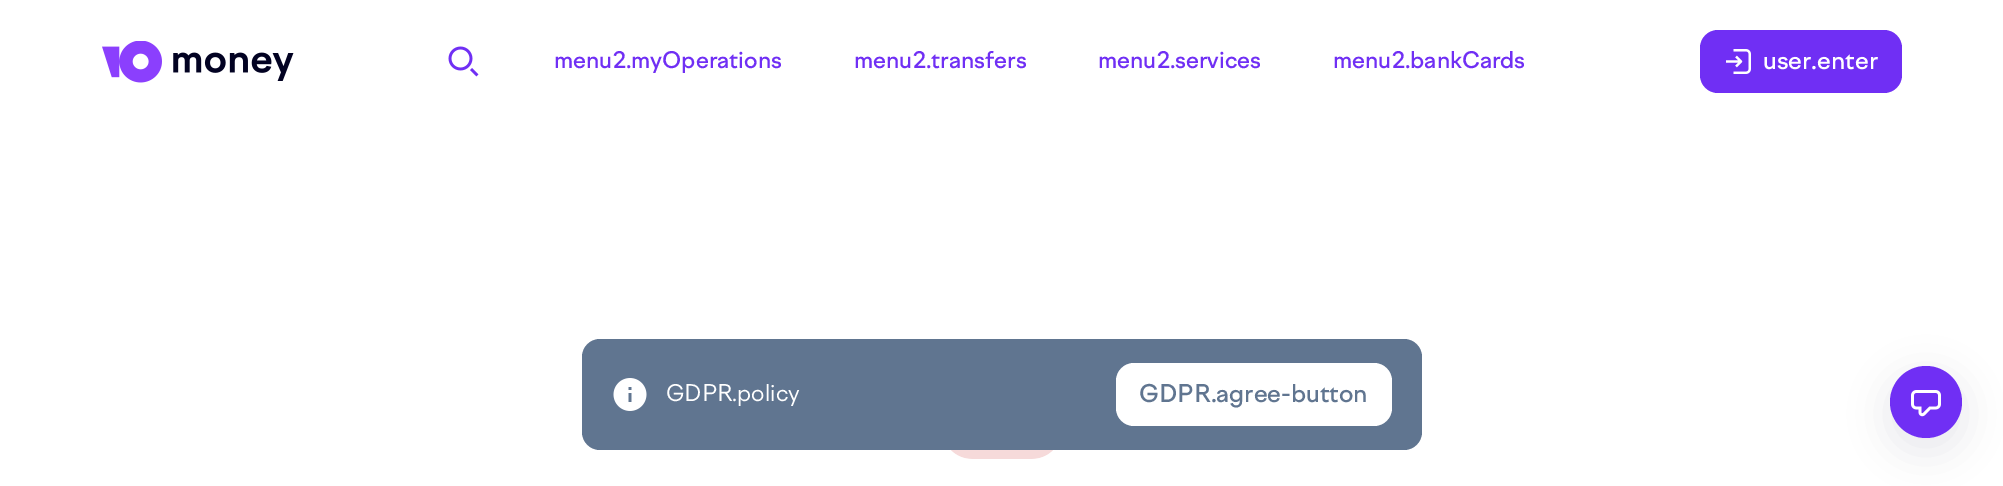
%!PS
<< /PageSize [2003 486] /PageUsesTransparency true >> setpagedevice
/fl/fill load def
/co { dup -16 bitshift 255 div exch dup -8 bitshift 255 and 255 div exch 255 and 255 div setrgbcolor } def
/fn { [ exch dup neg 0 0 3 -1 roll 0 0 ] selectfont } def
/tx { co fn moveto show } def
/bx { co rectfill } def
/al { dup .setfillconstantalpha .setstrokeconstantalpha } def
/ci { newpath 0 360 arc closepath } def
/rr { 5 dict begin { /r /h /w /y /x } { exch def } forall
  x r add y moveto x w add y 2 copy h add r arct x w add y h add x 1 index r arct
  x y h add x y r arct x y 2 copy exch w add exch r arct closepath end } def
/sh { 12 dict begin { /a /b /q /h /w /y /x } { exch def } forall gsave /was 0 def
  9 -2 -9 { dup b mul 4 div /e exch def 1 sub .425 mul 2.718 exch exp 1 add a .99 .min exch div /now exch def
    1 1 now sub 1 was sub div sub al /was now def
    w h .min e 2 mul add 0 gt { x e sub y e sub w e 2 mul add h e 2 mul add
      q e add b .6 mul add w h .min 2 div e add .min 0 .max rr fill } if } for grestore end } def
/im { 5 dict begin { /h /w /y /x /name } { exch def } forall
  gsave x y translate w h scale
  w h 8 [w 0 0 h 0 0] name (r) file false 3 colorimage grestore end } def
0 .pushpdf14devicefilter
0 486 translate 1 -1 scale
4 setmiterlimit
0 0 2003 486 16#FFFFFF bx
(media/1.raw) 102 41 192 42 im
(media/2.raw) 448 46 31 31 im
16#702FF4 co
1700 30 202 63 18 rr fl
(media/3.raw) 1726 49 25 25 im
16#607590 co
582 339 840 111 18 rr fl
(media/4.raw) 613 378 34 33 im
16#FFFFFF co
1116 363 276 63 18 rr fl
16#000832 co
1887 375 78 78 39 18 .08 sh
16#702FF4 co
1926 402 36 ci fl
(media/5.raw) 1911 390 30 27 im
(media/6.raw) 951 450 102 9 im
(menu2.myOperations) 554 68 /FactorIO-Medium 22.5 16#702FF4 tx
(menu2.transfers) 854 68 /FactorIO-Medium 22.5 16#702FF4 tx
(menu2.services) 1098 68 /FactorIO-Medium 22.5 16#702FF4 tx
(menu2.bankCards) 1333 68 /FactorIO-Medium 22.5 16#702FF4 tx
(user.enter) 1763 69 /FactorIO-Medium 24 16#FFFFFF tx
(GDPR.policy) 666 401 /FactorIO-Regular 22.5 16#FFFFFF tx
(GDPR.agree-button) 1139 402 /FactorIO-Medium 24 16#607590 tx
.poppdf14devicefilter showpage
